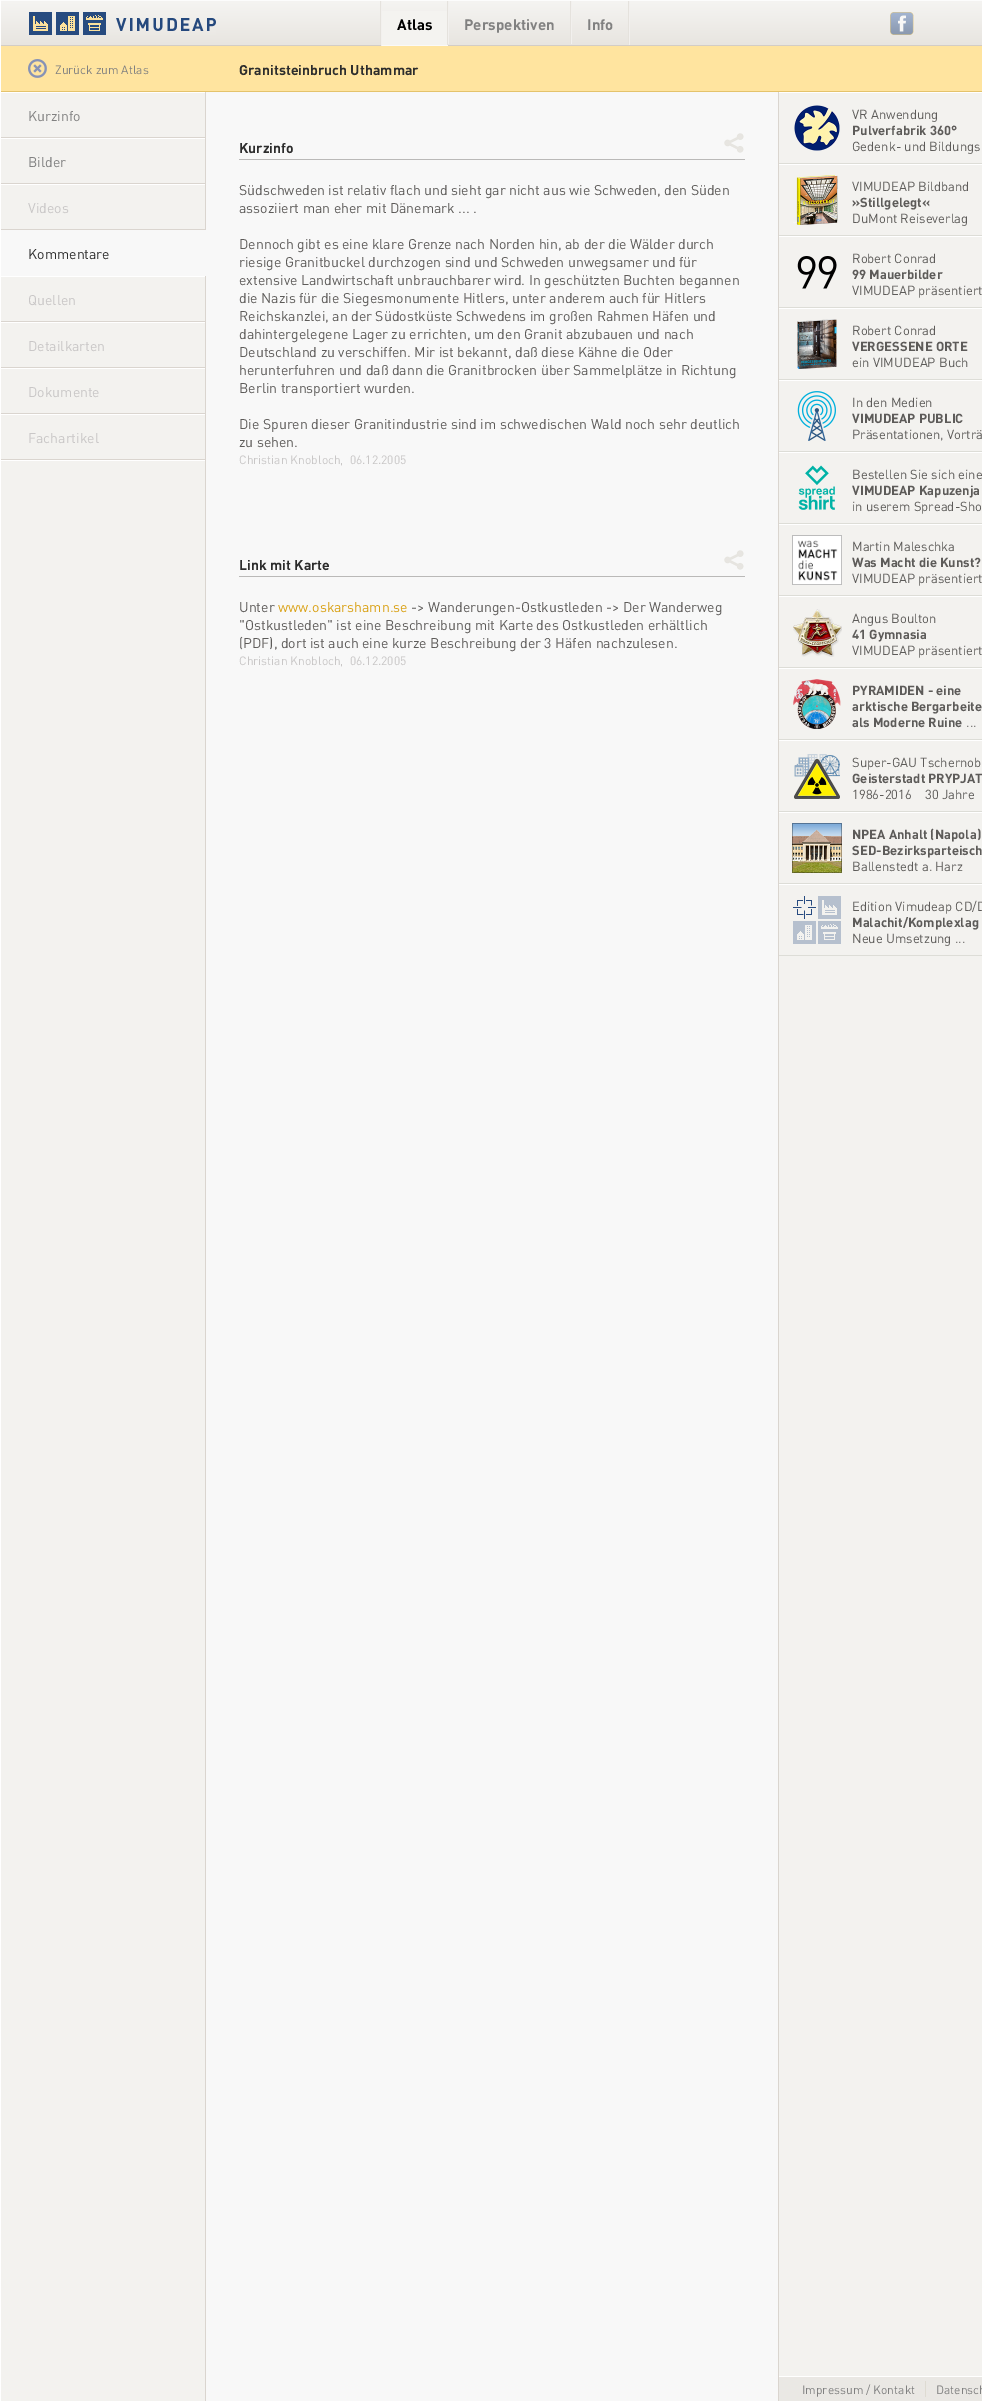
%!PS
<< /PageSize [982 2401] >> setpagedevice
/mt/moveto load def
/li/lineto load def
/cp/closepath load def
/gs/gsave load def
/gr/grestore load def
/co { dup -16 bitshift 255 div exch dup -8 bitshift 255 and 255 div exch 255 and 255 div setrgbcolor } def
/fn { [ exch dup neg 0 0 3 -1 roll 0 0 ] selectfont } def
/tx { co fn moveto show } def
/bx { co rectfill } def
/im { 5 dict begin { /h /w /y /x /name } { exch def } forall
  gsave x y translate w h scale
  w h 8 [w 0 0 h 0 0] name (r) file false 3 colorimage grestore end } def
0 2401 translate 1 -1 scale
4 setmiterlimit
0 0 982 2401 16#FFFFFF bx
gs 1 1 mt 982 1 li 982 45 li 1 45 li cp clip newpath
<< /ShadingType 2 /ColorSpace /DeviceRGB /Coords [513 1 513 45] /Extend [true true] /Function << /FunctionType 2 /Domain [0 1] /C0 [.961 .957 .949] /C1 [.91 .898 .878] /N 1 >> >> shfill gr
1 0 981 1 16#FCFCFC bx
(media/1.raw) 29 12 187 23 im
629 1 1 44 16#F2F0EE bx
380 1 1 44 16#E5E2DD bx
382 11 65 34 16#F4F3F0 bx
1 45 981 1 16#D3CDC6 bx
447 1 1 45 16#E5E2DD bx
381 45 67 1 16#FAF9F8 bx
381 1 1 45 16#F2F0EE bx
570 1 1 43 16#E5E2DD bx
448 1 1 43 16#F2F0EE bx
628 1 1 43 16#E5E2DD bx
571 1 1 43 16#F2F0EE bx
(media/2.raw) 890 12 24 23 im
1 46 981 45 16#FFE49F bx
1 91 981 1 16#E4C36C bx
(media/3.raw) 28 59 19 19 im
1 93 204 2308 16#F3F2EF bx
205 92 1 2309 16#DAD5CF bx
1 137 204 1 16#DAD5CF bx
1 138 204 1 16#FFFFFF bx
1 183 204 1 16#DAD5CF bx
1 184 204 1 16#FFFFFF bx
1 229 204 1 16#DAD5CF bx
1 230 205 46 16#F8F8F8 bx
1 276 204 1 16#FFFFFF bx
1 321 204 1 16#DAD5CF bx
1 322 204 1 16#FFFFFF bx
1 367 204 1 16#DAD5CF bx
1 368 204 1 16#FFFFFF bx
1 413 204 1 16#DAD5CF bx
1 414 204 1 16#FFFFFF bx
1 459 204 1 16#DAD5CF bx
1 460 204 1 16#FFFFFF bx
206 92 572 2309 16#F8F8F8 bx
239 159 506 1 16#BAB9B8 bx
(media/4.raw) 724 133 20 20 im
239 576 506 1 16#BAB9B8 bx
(media/4.raw) 724 550 20 20 im
779 93 203 2283 16#F3F2EF bx
778 92 1 2309 16#DAD5CF bx
779 163 203 1 16#DDDDD7 bx
(media/5.raw) 794 105 46 46 im
779 164 203 1 16#FFFFFF bx
779 235 203 1 16#DDDDD7 bx
(media/6.raw) 793 175 45 50 im
779 236 203 1 16#FFFFFF bx
779 307 203 1 16#DDDDD7 bx
(media/7.raw) 797 256 40 33 im
779 308 203 1 16#FFFFFF bx
779 379 203 1 16#DDDDD7 bx
(media/8.raw) 797 319 40 50 im
779 380 203 1 16#FFFFFF bx
779 451 203 1 16#DDDDD7 bx
(media/9.raw) 797 391 39 50 im
779 452 203 1 16#FFFFFF bx
779 523 203 1 16#DDDDD7 bx
(media/10.raw) 798 465 37 45 im
779 524 203 1 16#FFFFFF bx
779 595 203 1 16#DDDDD7 bx
(media/11.raw) 792 535 50 50 im
779 596 203 1 16#FFFFFF bx
779 667 203 1 16#DDDDD7 bx
(media/12.raw) 793 609 49 48 im
779 668 203 1 16#FFFFFF bx
779 739 203 1 16#DDDDD7 bx
(media/13.raw) 793 679 48 50 im
779 740 203 1 16#FFFFFF bx
779 811 203 1 16#DDDDD7 bx
(media/14.raw) 794 754 46 45 im
779 812 203 1 16#FFFFFF bx
779 883 203 1 16#DDDDD7 bx
(media/15.raw) 792 823 50 50 im
779 884 203 1 16#FFFFFF bx
779 955 203 1 16#DDDDD7 bx
(media/16.raw) 793 896 48 48 im
779 2377 203 24 16#EAE8E4 bx
925 2381 1 16 16#DEDBD2 bx
(Atlas) 397 30 /DIN-Bold 15 16#000000 tx
(Perspektiven) 464 30 /DIN-Bold 15 16#818181 tx
(Info) 587 30 /DIN-Bold 15 16#818181 tx
(Zurück zum Atlas) 55 74 /DIN-Regular 12 16#818181 tx
(Granitsteinbruch Uthammar) 239 75 /DIN-Bold 14 16#2D2D2D tx
(Kurzinfo) 28 121 /DIN-Regular 14 16#818181 tx
(Bilder) 28 167 /DIN-Regular 14 16#818181 tx
(Videos) 28 213 /DIN-Regular 14 16#C9C7C7 tx
(Kommentare) 28 259 /DIN-Regular 14 16#2D2D2D tx
(Quellen) 28 305 /DIN-Regular 14 16#C9C7C7 tx
(Detailkarten) 28 351 /DIN-Regular 14 16#C9C7C7 tx
(Dokumente) 28 397 /DIN-Regular 14 16#C9C7C7 tx
(Fachartikel) 28 443 /DIN-Regular 14 16#C9C7C7 tx
(Kurzinfo) 239 153 /DIN-Bold 14 16#2D2D2D tx
(Südschweden ist relativ flach und sieht gar nicht aus wie Schweden, den Süden) 239 195 /DIN-Regular 14 16#5D5B59 tx
(assoziiert man eher mit Dänemark ... .) 239 213 /DIN-Regular 14 16#5D5B59 tx
(Dennoch gibt es eine klare Grenze nach Norden hin, ab der die Wälder durch) 239 249 /DIN-Regular 14 16#5D5B59 tx
(riesige Granitbuckel durchzogen sind und Schweden unwegsamer und für) 239 267 /DIN-Regular 14 16#5D5B59 tx
(extensive Landwirtschaft unbrauchbarer wird. In geschützten Buchten begannen) 239 285 /DIN-Regular 14 16#5D5B59 tx
(die Nazis für die Siegesmonumente Hitlers, unter anderem auch für Hitlers) 239 303 /DIN-Regular 14 16#5D5B59 tx
(Reichskanzlei, an der Südostküste Schwedens im großen Rahmen Häfen und) 239 321 /DIN-Regular 14 16#5D5B59 tx
(dahintergelegene Lager zu errichten, um den Granit abzubauen und nach) 239 339 /DIN-Regular 14 16#5D5B59 tx
(Deutschland zu verschiffen. Mir ist bekannt, daß diese Kähne die Oder) 239 357 /DIN-Regular 14 16#5D5B59 tx
(herunterfuhren und daß dann die Granitbrocken über Sammelplätze in Richtung) 239 375 /DIN-Regular 14 16#5D5B59 tx
(Berlin transportiert wurden.) 239 393 /DIN-Regular 14 16#5D5B59 tx
(Die Spuren dieser Granitindustrie sind im schwedischen Wald noch sehr deutlich) 239 429 /DIN-Regular 14 16#5D5B59 tx
(zu sehen.) 239 447 /DIN-Regular 14 16#5D5B59 tx
(Christian Knobloch,  06.12.2005) 239 464 /DIN-Regular 12 16#C9C7C7 tx
(Link mit Karte) 239 570 /DIN-Bold 14 16#2D2D2D tx
(Unter) 239 612 /DIN-Regular 14 16#5D5B59 tx
(www.oskarshamn.se) 278 612 /DIN-Regular 14 16#DAA114 tx
(-> Wanderungen-Ostkustleden -> Der Wanderweg) 411 612 /DIN-Regular 14 16#5D5B59 tx
("Ostkustleden" ist eine Beschreibung mit Karte des Ostkustleden erhältlich) 239 630 /DIN-Regular 14 16#5D5B59 tx
(\(PDF\), dort ist auch eine kurze Beschreibung der 3 Häfen nachzulesen.) 239 648 /DIN-Regular 14 16#5D5B59 tx
(Christian Knobloch,  06.12.2005) 239 665 /DIN-Regular 12 16#C9C7C7 tx
(VR Anwendung) 852 119 /DIN-Regular 13 16#5D5B59 tx
(Pulverfabrik 360°) 852 135 /DIN-Bold 13 16#5D5B59 tx
(Gedenk- und Bildungs) 852 151 /DIN-Regular 13 16#5D5B59 tx
(VIMUDEAP Bildband) 852 191 /DIN-Regular 13 16#5D5B59 tx
(»Stillgelegt«) 852 207 /DIN-Bold 13 16#5D5B59 tx
(DuMont Reiseverlag) 852 223 /DIN-Regular 13 16#5D5B59 tx
(Robert Conrad) 852 263 /DIN-Regular 13 16#5D5B59 tx
(99 Mauerbilder) 852 279 /DIN-Bold 13 16#5D5B59 tx
(VIMUDEAP präsentiert) 852 295 /DIN-Regular 13 16#5D5B59 tx
(Robert Conrad) 852 335 /DIN-Regular 13 16#5D5B59 tx
(VERGESSENE ORTE) 852 351 /DIN-Bold 13 16#5D5B59 tx
(ein VIMUDEAP Buch) 852 367 /DIN-Regular 13 16#5D5B59 tx
(In den Medien) 852 407 /DIN-Regular 13 16#5D5B59 tx
(VIMUDEAP PUBLIC) 852 423 /DIN-Bold 13 16#5D5B59 tx
(Präsentationen, Vorträ) 852 439 /DIN-Regular 13 16#5D5B59 tx
(Bestellen Sie sich eine) 852 479 /DIN-Regular 13 16#5D5B59 tx
(VIMUDEAP Kapuzenja) 852 495 /DIN-Bold 13 16#5D5B59 tx
(in userem Spread-Sho) 852 511 /DIN-Regular 13 16#5D5B59 tx
(Martin Maleschka) 852 551 /DIN-Regular 13 16#5D5B59 tx
(Was Macht die Kunst?) 852 567 /DIN-Bold 13 16#5D5B59 tx
(VIMUDEAP präsentiert) 852 583 /DIN-Regular 13 16#5D5B59 tx
(Angus Boulton) 852 623 /DIN-Regular 13 16#5D5B59 tx
(41 Gymnasia) 852 639 /DIN-Bold 13 16#5D5B59 tx
(VIMUDEAP präsentiert) 852 655 /DIN-Regular 13 16#5D5B59 tx
(PYRAMIDEN - eine) 852 695 /DIN-Bold 13 16#5D5B59 tx
(arktische Bergarbeite) 852 711 /DIN-Bold 13 16#5D5B59 tx
(als Moderne Ruine) 852 727 /DIN-Bold 13 16#5D5B59 tx
(...) 966 727 /DIN-Regular 13 16#5D5B59 tx
(Super-GAU Tschernob) 852 767 /DIN-Regular 13 16#5D5B59 tx
(Geisterstadt PRYPJAT) 852 783 /DIN-Bold 13 16#5D5B59 tx
(1986-2016    30 Jahre) 852 799 /DIN-Regular 13 16#5D5B59 tx
(NPEA Anhalt \(Napola\)) 852 839 /DIN-Bold 13 16#5D5B59 tx
(SED-Bezirksparteisch) 852 855 /DIN-Bold 13 16#5D5B59 tx
(Ballenstedt a. Harz) 852 871 /DIN-Regular 13 16#5D5B59 tx
(Edition Vimudeap CD/D) 852 911 /DIN-Regular 13 16#5D5B59 tx
(Malachit/Komplexlag) 852 927 /DIN-Bold 13 16#5D5B59 tx
(Neue Umsetzung ...) 852 943 /DIN-Regular 13 16#5D5B59 tx
(Impressum / Kontakt) 802 2394 /DIN-Regular 12 16#818181 tx
(Datensch) 936 2394 /DIN-Regular 12 16#818181 tx
showpage
